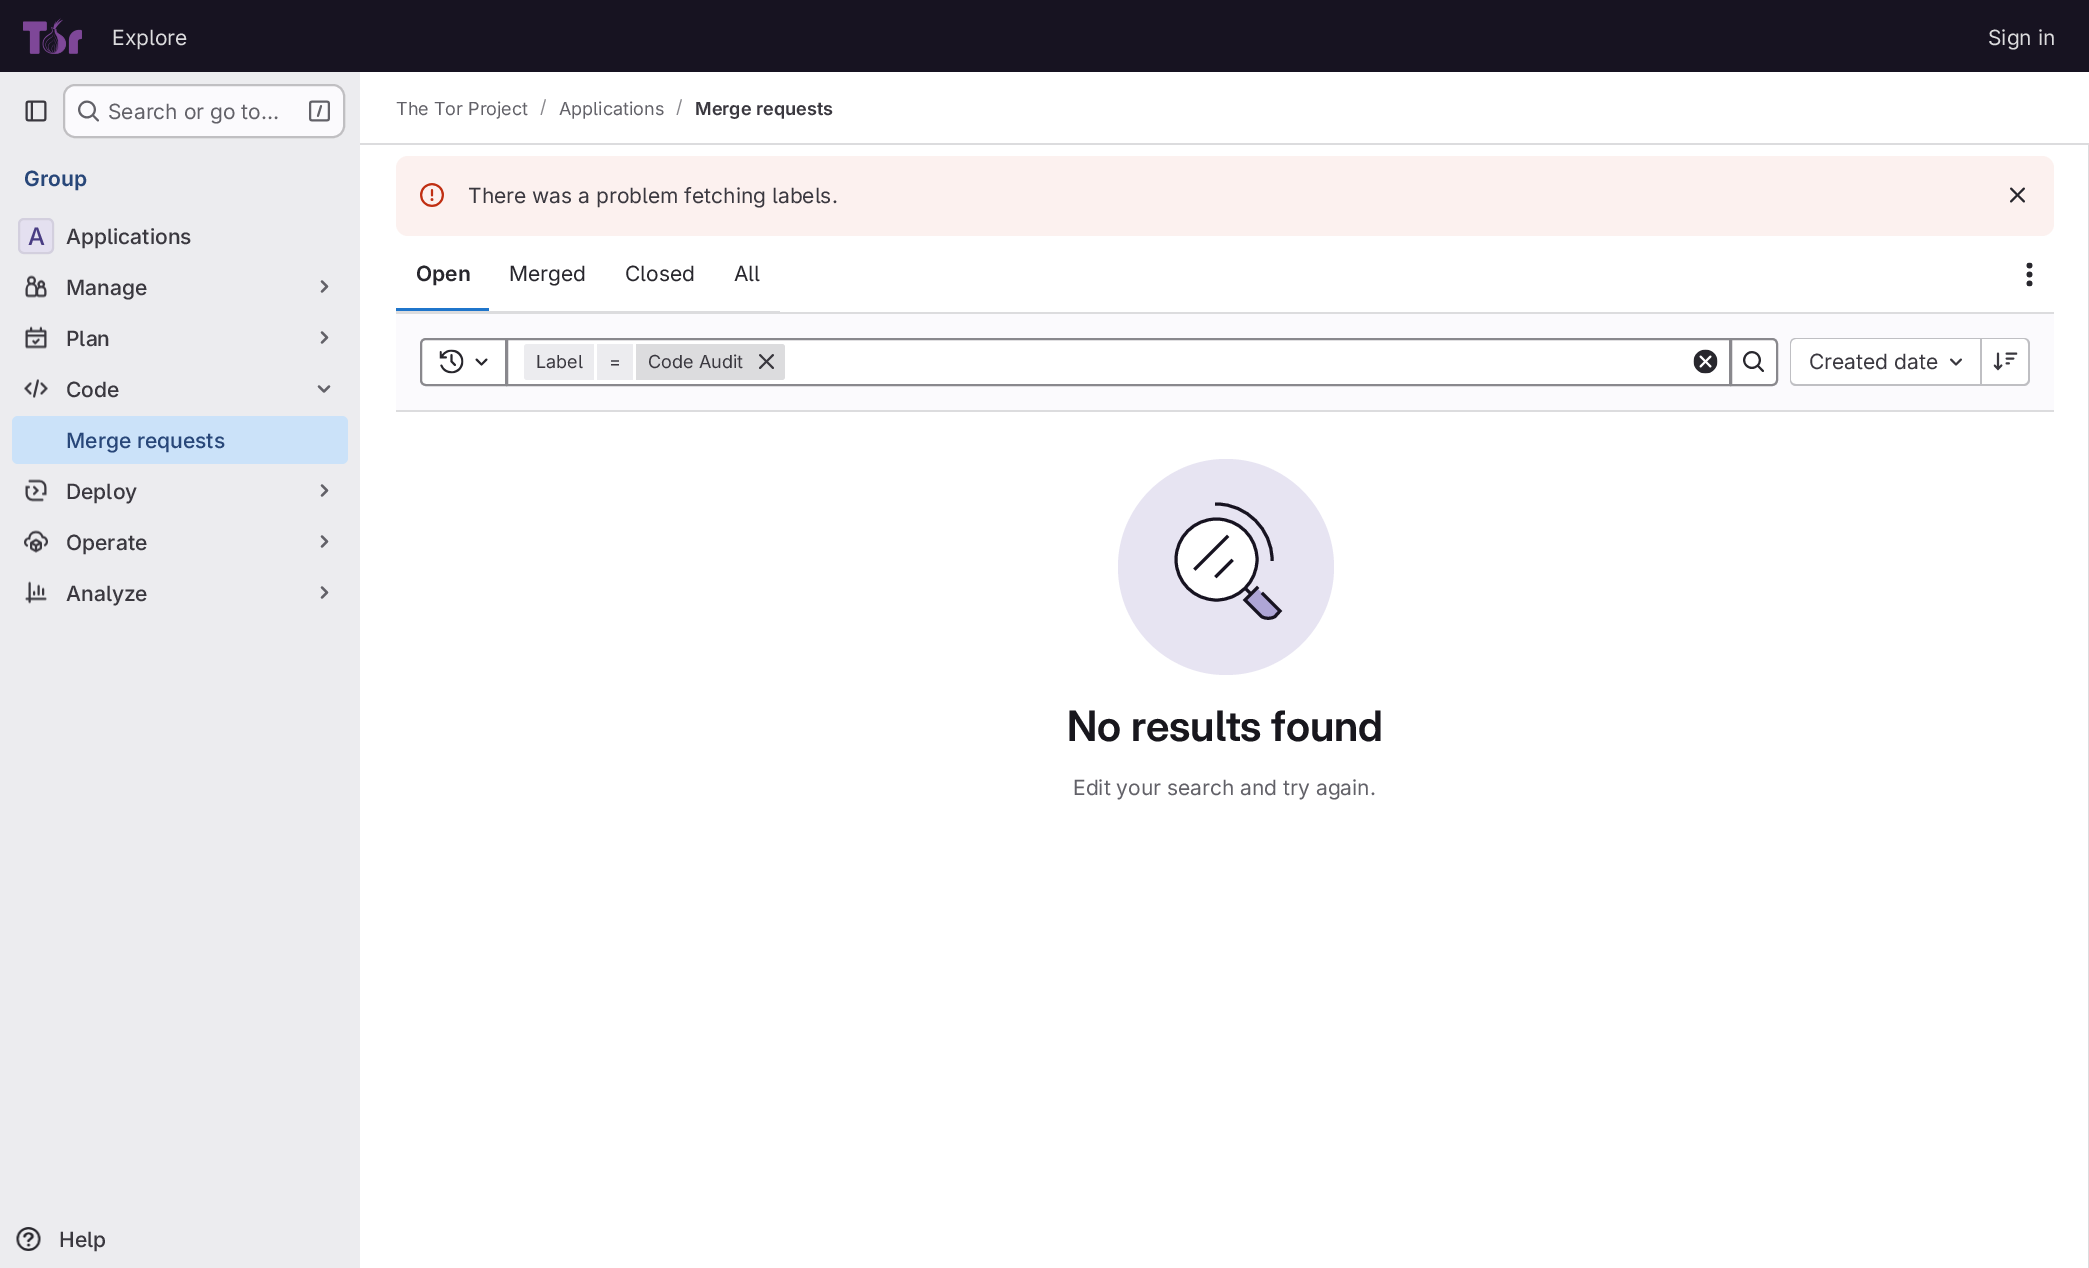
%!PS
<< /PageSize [2089 1268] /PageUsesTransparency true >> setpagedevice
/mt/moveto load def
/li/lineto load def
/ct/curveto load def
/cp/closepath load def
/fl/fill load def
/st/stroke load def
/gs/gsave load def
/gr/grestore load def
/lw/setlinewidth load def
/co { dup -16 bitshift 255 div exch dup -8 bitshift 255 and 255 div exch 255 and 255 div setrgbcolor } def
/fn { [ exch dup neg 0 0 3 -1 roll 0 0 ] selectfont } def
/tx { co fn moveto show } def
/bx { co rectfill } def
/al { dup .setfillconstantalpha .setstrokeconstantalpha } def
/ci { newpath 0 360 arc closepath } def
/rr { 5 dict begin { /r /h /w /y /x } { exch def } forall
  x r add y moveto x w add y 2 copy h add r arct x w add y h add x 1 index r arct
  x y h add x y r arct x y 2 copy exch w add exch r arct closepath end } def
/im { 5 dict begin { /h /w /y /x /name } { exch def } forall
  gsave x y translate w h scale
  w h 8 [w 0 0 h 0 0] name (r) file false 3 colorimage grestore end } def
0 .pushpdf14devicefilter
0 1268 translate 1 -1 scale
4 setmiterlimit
0 0 2089 1268 16#FFFFFF bx
0 0 2089 72 16#171321 bx
(media/1.raw) 23 18 59 36 im
0 72 360 1196 16#ECECEF bx
(media/2.raw) 25 100 22 22 im
16#FBFAFD co
63 84 282 54 12 rr fl
0.24 al
16#050506 co
2 lw
64 85 280 52 11 rr st
1 al
(media/3.raw) 78 100 21 22 im
(media/4.raw) 309 100 21 22 im
16#E4E0F0 co
18 218 36 36 6 rr fl
0.08 al
16#050506 co
19 219 34 34 5 rr st
1 al
(media/5.raw) 25 275 22 23 im
16#626168 co
2.2 lw
1 setlinecap
1 setlinejoin
322 281.5 mt 327 286.5 li 322 291.5 li st
(media/6.raw) 25 326 22 23 im
322 332.5 mt 327 337.5 li 322 342.5 li st
(media/7.raw) 24 379 24 19 im
329 386.5 mt 324 391.5 li 319 386.5 li st
16#CBE2F9 co
12 416 336 48 6 rr fl
(media/8.raw) 25 479 22 23 im
16#626168 co
322 485.5 mt 327 490.5 li 322 495.5 li st
(media/9.raw) 24 530 24 23 im
322 536.5 mt 327 541.5 li 322 546.5 li st
(media/10.raw) 25 581 22 23 im
322 587.5 mt 327 592.5 li 322 597.5 li st
(media/11.raw) 16 1227 25 24 im
2088 144 1 1124 16#DCDCDE bx
360 143 1729 2 16#DCDCDE bx
16#FCF1EF co
396 156 1658 80 12 rr fl
(media/12.raw) 420 183 24 24 im
(media/13.raw) 2010 187 15 16 im
396 312 1658 2 16#DCDCDE bx
396 311 384 1 16#DCDCDE bx
396 308 93 3 16#1F75CB bx
(media/14.raw) 2026 262 7 25 im
396 314 1658 96 16#FBFAFD bx
396 410 1658 2 16#DCDCDE bx
16#FFFFFF co
507 339 mt 1730 339 li 1730 385 li 507 385 li cp gs fl gr
16#89888D co
2 lw
0 setlinecap
0 setlinejoin
st
16#FFFFFF co
426 339 mt 506 339 li 506 385 li 426 385 li 423 385 421 383 421 380 ct 421 344 li 421 341 423 339 426 339 ct cp gs fl gr
16#89888D co
st
(media/15.raw) 439 349 25 25 im
(media/16.raw) 475 358 13 8 im
16#ECECEF co
527 344 mt 594 344 li 594 380 li 527 380 li 525.5 380 524 378.5 524 377 ct 524 347 li 524 345.5 525.5 344 527 344 ct cp fl
597 344 36 36 16#ECECEF bx
16#DCDCDE co
636 344 mt 782 344 li 783.5 344 785 345.5 785 347 ct 785 377 li 785 378.5 783.5 380 782 380 ct 636 380 li cp fl
(media/17.raw) 759 354 15 15 im
(media/18.raw) 1693 349 25 25 im
16#FFFFFF co
1731 339 mt 1772 339 li 1775 339 1777 341 1777 344 ct 1777 380 li 1777 383 1775 385 1772 385 ct 1731 385 li cp gs fl gr
16#89888D co
st
(media/19.raw) 1743 351 21 21 im
16#FFFFFF co
1796 339 mt 1980 339 li 1980 384 li 1796 384 li 1793 384 1791 382 1791 379 ct 1791 344 li 1791 341 1793 339 1796 339 ct cp fl
16#BFBFC3 co
1796 338 mt 1980 338 li 1980 386 li 1796 386 li 1792 386 1790 383 1790 380 ct 1790 344 li 1790 340 1792 338 1796 338 ct cp 1796 339 mt 1980 339 li 1980 384 li 1796 384 li 1793 384 1791 382 1791 380 ct 1791 344 li 1791 341 1793 339 1796 339 ct cp eofill
(media/20.raw) 1950 358 12 8 im
16#FFFFFF co
1982 339 mt 2023 339 li 2026 339 2028 341 2028 344 ct 2028 379 li 2028 382 2026 384 2023 384 ct 1982 384 li cp fl
16#BFBFC3 co
1982 338 mt 2024 338 li 2027 338 2030 340 2030 344 ct 2030 380 li 2030 383 2027 386 2024 386 ct 1982 386 li cp 1982 339 mt 2024 339 li 2026 339 2028 341 2028 344 ct 2028 380 li 2028 382 2026 384 2024 384 ct 1982 384 li cp eofill
1980 338 2 48 16#BFBFC3 bx
(media/21.raw) 1993 352 25 19 im
16#E7E4F2 co
1226 567 108 ci fl
16#AEA5D6 co
1257 588 mt 1245 600 li 1261.5 616.5 li 1265.5 619 1271 619 1275 616.5 ct 1280 611 li cp fl
16#171321 co
3 lw
2 setlinecap
1257 588 mt 1245 600 li 1261.5 616.5 li 1265.5 619 1271 619 1275 616.5 ct 1280 611 li 1263 594 li 1245 588 mt 1249.5 592.5 li st
16#FFFFFF co
1216.5 559.5 40.5 ci gs fl gr
16#171321 co
0 setlinecap
st
2 setlinecap
1216.5 576 mt 1231.5 561 li 1195.5 568.5 mt 1227 537 li 1272 559.5 mt 1272 529.5 1246.5 504 1216.5 504 ct st
(Explore) 112 45 /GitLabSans-Regular 21 16#DCDCDE tx
(Sign in) 1988 45 /GitLabSans-Regular 21 16#DCDCDE tx
(Search or go to…) 108 119 /GitLabSans-Regular 21 16#626168 tx
(Group) 24 186 /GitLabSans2-SemiBold 21 16#284779 tx
(A) 28 245 /GitLabSans2-Medium 24 16#493C83 tx
(Applications) 66 244 /GitLabSans-Medium 21 16#3A383F tx
(Manage) 66 295 /GitLabSans-Medium 21 16#3A383F tx
(Plan) 66 346 /GitLabSans-Medium 21 16#3A383F tx
(Code) 66 397 /GitLabSans-Medium 21 16#3A383F tx
(Merge requests) 66 448 /GitLabSans-Medium 21 16#284779 tx
(Deploy) 66 499 /GitLabSans-Medium 21 16#3A383F tx
(Operate) 66 550 /GitLabSans-Medium 21 16#3A383F tx
(Analyze) 66 601 /GitLabSans-Medium 21 16#3A383F tx
(Help) 59 1247 /GitLabSans-Medium 21 16#3A383F tx
(The Tor Project) 396 115 /GitLabSans-Regular 18 16#626168 tx
(/) 540 113 /GitLabSans-Regular 18 16#89888D tx
(Applications) 559 115 /GitLabSans-Regular 18 16#626168 tx
(/) 676 113 /GitLabSans-Regular 18 16#89888D tx
(Merge requests) 695 115 /GitLabSans2-SemiBold 18 16#3A383F tx
(There was a problem fetching labels.) 468 203 /GitLabSans-Regular 21 16#3A383F tx
(Open) 416 281 /GitLabSans2-SemiBold 21 16#28272D tx
(Merged) 509 281 /GitLabSans-Regular 21 16#28272D tx
(Closed) 625 281 /GitLabSans-Regular 21 16#28272D tx
(All) 734 281 /GitLabSans-Regular 21 16#28272D tx
(Label) 536 368 /GitLabSans-Regular 18 16#3A383F tx
(=) 609 368 /GitLabSans-Regular 18 16#3A383F tx
(Code Audit) 648 368 /GitLabSans-Regular 18 16#3A383F tx
(Created date) 1809 369 /GitLabSans-Regular 21 16#3A383F tx
(No results found) 1067 741 /GitLabSans-SemiBold 42 16#18171D tx
(Edit your search and try again.) 1073 795 /GitLabSans-Regular 21 16#626168 tx
.poppdf14devicefilter showpage
